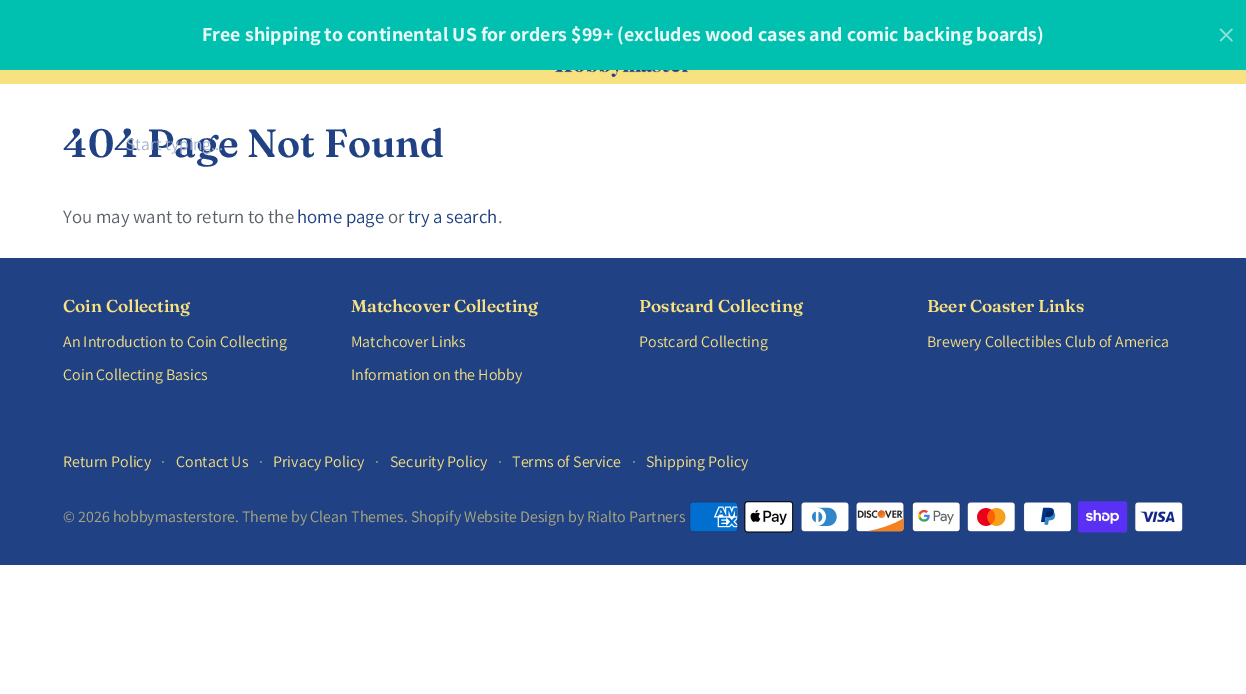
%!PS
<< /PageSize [1246 694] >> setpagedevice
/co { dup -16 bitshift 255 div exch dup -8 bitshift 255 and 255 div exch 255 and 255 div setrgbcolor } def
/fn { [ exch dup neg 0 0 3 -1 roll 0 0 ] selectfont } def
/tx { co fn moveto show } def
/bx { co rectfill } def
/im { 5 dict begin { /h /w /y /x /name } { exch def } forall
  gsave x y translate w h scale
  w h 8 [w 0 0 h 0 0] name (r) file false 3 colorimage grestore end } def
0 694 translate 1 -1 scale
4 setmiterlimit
0 0 1246 694 16#FFFFFF bx
0 0 1246 70 16#00C0AF bx
(media/1.raw) 1219 28 14 14 im
0 70 1246 14 16#F7E180 bx
(media/2.raw) 555 70 134 7 im
0 258 1246 307 16#204183 bx
(media/3.raw) 689 501 50 32 im
(media/4.raw) 744 501 50 32 im
(media/5.raw) 801 502 48 30 im
(media/6.raw) 855 501 50 32 im
(media/7.raw) 911 501 50 32 im
(media/8.raw) 967 502 49 30 im
(media/9.raw) 1023 502 49 30 im
(media/10.raw) 1078 501 50 32 im
(media/11.raw) 1134 502 49 30 im
(Free shipping to continental US for orders $99+ \(excludes wood cases and comic backing boards\)) 202 41 /Assistant-Bold 20 16#E6F9F7 tx
(404 Page Not Found) 63 157 /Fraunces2-SemiBold 39.4 16#204183 tx
(You may want to return to the) 63 223 /Assistant-Regular 18.75 16#5B6169 tx
(home page) 297 223 /Assistant-Regular 18.75 16#204183 tx
(or) 388 223 /Assistant-Regular 18.75 16#5B6169 tx
(try a search) 408 223 /Assistant-Regular 18.75 16#204183 tx
(.) 498 223 /Assistant-Regular 18.75 16#5B6169 tx
(Start typing...) 126 150 /Assistant-Regular 17.5 16#A7B4CE tx
(Coin Collecting) 63 312 /Fraunces-SemiBold 17.25 16#F7E180 tx
(An Introduction to Coin Collecting) 63 347 /Assistant-Regular 15.95 16#F7E180 tx
(Coin Collecting Basics) 63 380 /Assistant-Regular 15.95 16#F7E180 tx
(Matchcover Collecting) 351 312 /Fraunces-SemiBold 17.25 16#F7E180 tx
(Matchcover Links) 351 347 /Assistant-Regular 15.95 16#F7E180 tx
(Information on the Hobby) 351 380 /Assistant-Regular 15.95 16#F7E180 tx
(Postcard Collecting) 639 312 /Fraunces-SemiBold 17.25 16#F7E180 tx
(Postcard Collecting) 639 347 /Assistant-Regular 15.95 16#F7E180 tx
(Beer Coaster Links) 927 312 /Fraunces-SemiBold 17.25 16#F7E180 tx
(Brewery Collectibles Club of America) 927 347 /Assistant-Regular 15.95 16#F7E180 tx
(Return Policy) 63 467 /Assistant-Regular 15.95 16#F7E180 tx
(·) 161 467 /Assistant-Regular 15.95 16#ABA981 tx
(Contact Us) 176 467 /Assistant-Regular 15.95 16#F7E180 tx
(·) 259 467 /Assistant-Regular 15.95 16#ABA981 tx
(Privacy Policy) 273 467 /Assistant-Regular 15.95 16#F7E180 tx
(·) 375 467 /Assistant-Regular 15.95 16#ABA981 tx
(Security Policy) 390 467 /Assistant-Regular 15.95 16#F7E180 tx
(·) 498 467 /Assistant-Regular 15.95 16#ABA981 tx
(Terms of Service) 512 467 /Assistant-Regular 15.95 16#F7E180 tx
(·) 632 467 /Assistant-Regular 15.95 16#ABA981 tx
(Shipping Policy) 646 467 /Assistant-Regular 15.95 16#F7E180 tx
(© 2026 hobbymasterstore. Theme by Clean Themes. Shopify Website Design by Rialto Partners) 63 522 /Assistant-Regular 15.95 16#ABA981 tx
showpage
